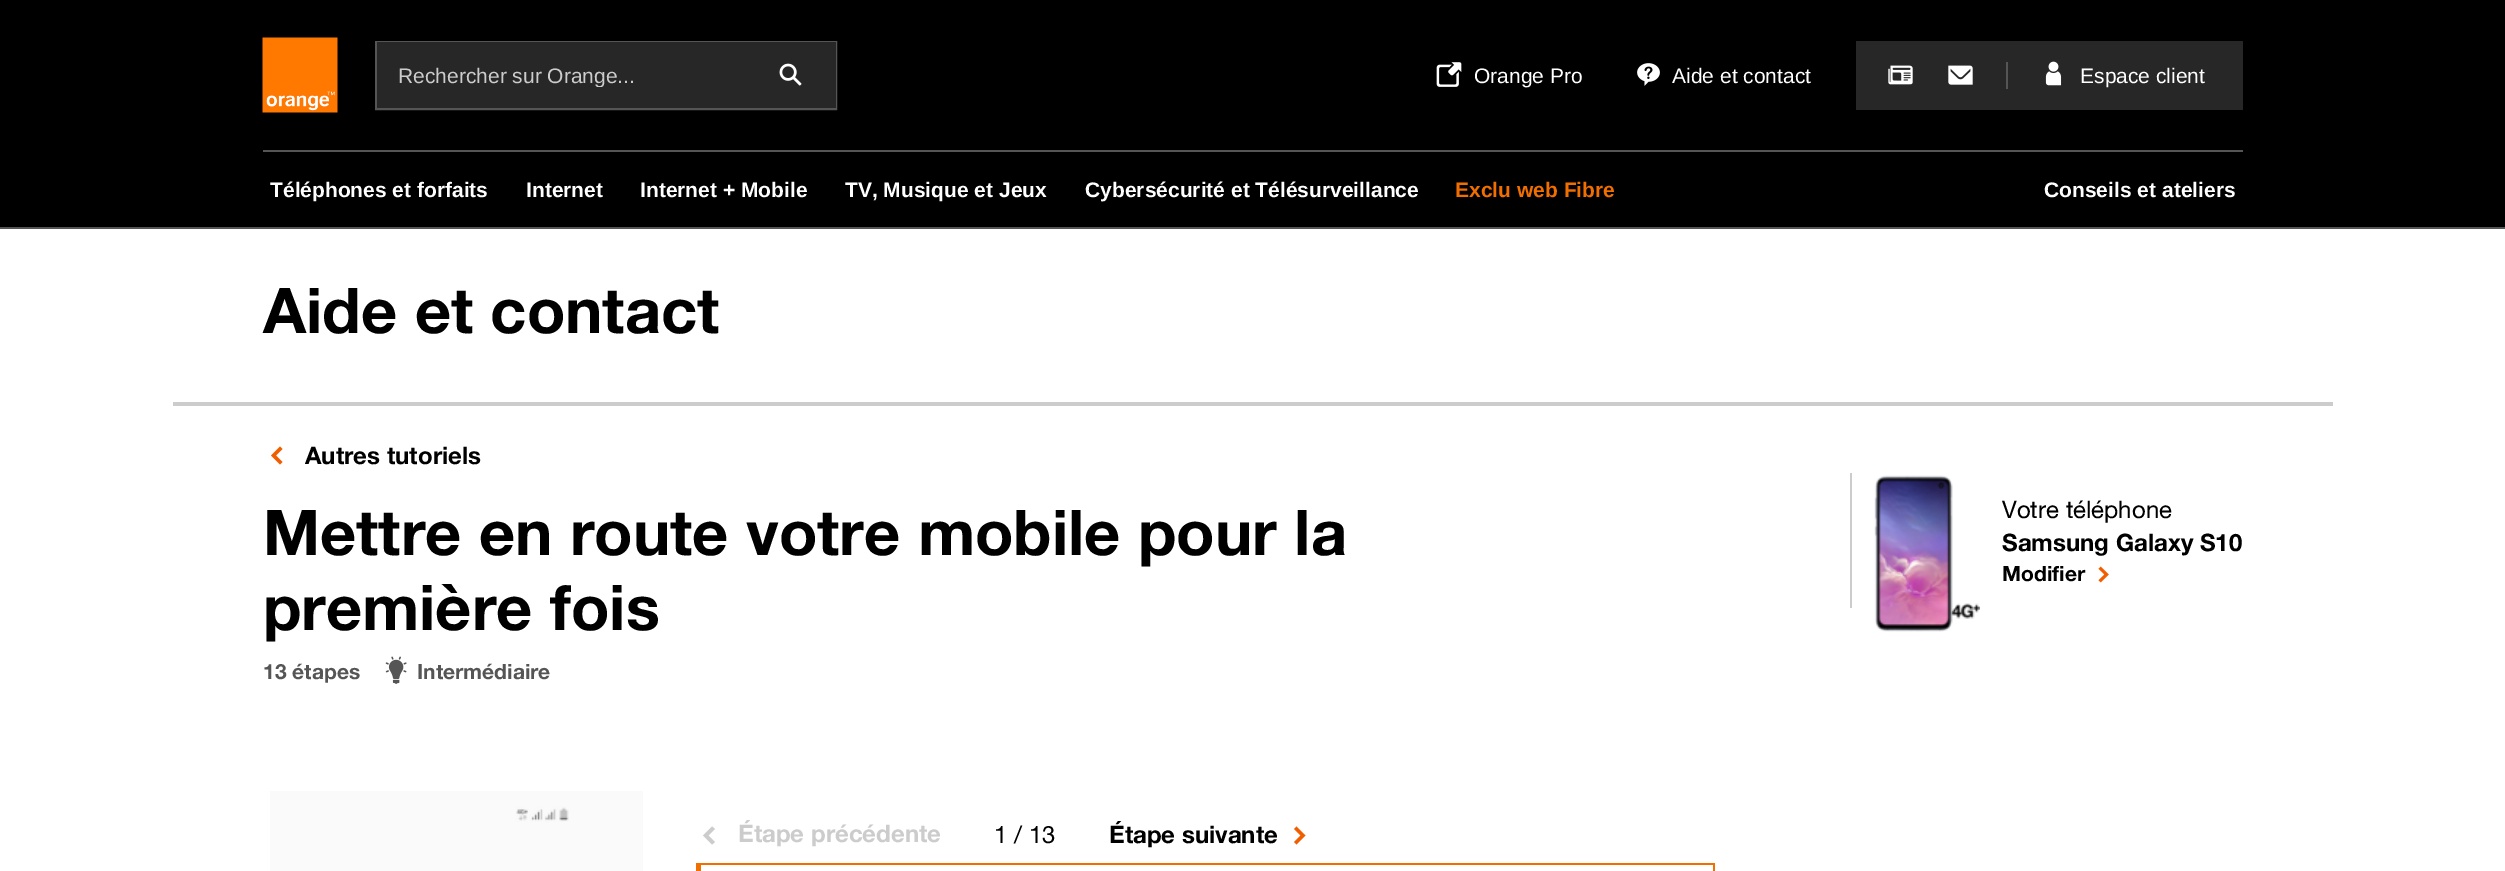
%!PS
<< /PageSize [2505 871] >> setpagedevice
/mt/moveto load def
/li/lineto load def
/cp/closepath load def
/fl/fill load def
/gs/gsave load def
/gr/grestore load def
/lw/setlinewidth load def
/co { dup -16 bitshift 255 div exch dup -8 bitshift 255 and 255 div exch 255 and 255 div setrgbcolor } def
/fn { [ exch dup neg 0 0 3 -1 roll 0 0 ] selectfont } def
/tx { co fn moveto show } def
/bx { co rectfill } def
/im { 5 dict begin { /h /w /y /x /name } { exch def } forall
  gsave x y translate w h scale
  w h 8 [w 0 0 h 0 0] name (r) file false 3 colorimage grestore end } def
0 871 translate 1 -1 scale
4 setmiterlimit
0 0 2505 871 16#FFFFFF bx
0 0 2505 227 16#000000 bx
(media/1.raw) 262 37 76 76 im
16#555555 co
2 lw
376 42 460 67 rectstroke
377 42 459 66 16#272727 bx
(media/2.raw) 779 63 23 23 im
(media/3.raw) 1436 62 26 25 im
(media/4.raw) 1637 63 23 23 im
1856 41 387 69 16#272727 bx
(media/5.raw) 1888 65 25 20 im
(media/6.raw) 1948 65 25 20 im
2006 62 2 27 16#555555 bx
(media/7.raw) 2045 61 17 25 im
0 227 2505 2 16#555555 bx
263 150 1980 2 16#555555 bx
173 402 2160 4 16#CCCCCC bx
16#F15E00 co
280 446.5 mt 271 455.5 li 280 464.5 li 282.5 462 li 276 455.5 li 282.5 449 li cp fl
1850 473 2 135 16#CCCCCC bx
(media/8.raw) 1874 475 106 157 im
(media/9.raw) 2098 566 11 17 im
(media/10.raw) 385 656 22 28 im
(media/11.raw) 270 791 373 80 im
712 826.5 mt 703 835.5 li 712 844.5 li 715 842 li 708.5 835.5 li 715 829 li cp fl
16#F15E00 co
1296.5 844.5 mt 1305.5 835.5 li 1296.5 826.5 li 1294 829 li 1300.5 835.5 li 1294 842 li cp fl
696 863 1019 2 16#F16E00 bx
1713 863 2 8 16#F16E00 bx
696 863 5 8 16#F16E00 bx
gs
398 63 417 24 rectclip
(Rechercher sur Orange...) 398 83 /LiberationSans-Regular 21 16#CCCCCC tx
gr
(Orange Pro) 1474 83 /LiberationSans-Regular 21 16#FFFFFF tx
(Aide et contact) 1672 83 /LiberationSans-Regular 21 16#FFFFFF tx
(Espace client) 2080 83 /LiberationSans-Regular 21 16#FFFFFF tx
(Téléphones et forfaits) 270 197 /LiberationSans-Bold 21 16#FFFFFF tx
(Internet) 526 197 /LiberationSans-Bold 21 16#FFFFFF tx
(Internet + Mobile) 640 197 /LiberationSans-Bold 21 16#FFFFFF tx
(TV, Musique et Jeux) 845 197 /LiberationSans-Bold 21 16#FFFFFF tx
(Cybersécurité et Télésurveillance) 1085 197 /LiberationSans-Bold 21 16#FFFFFF tx
(Exclu web Fibre) 1455 197 /LiberationSans-Bold 21 16#F16E00 tx
(Conseils et ateliers) 2044 197 /LiberationSans-Bold 21 16#FFFFFF tx
(Aide et contact) 263 333 /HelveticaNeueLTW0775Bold-Bold 63 16#000000 tx
(Autres tutoriels) 305 464 /HelveticaNeueLTW0775Bold-Bold 24 16#000000 tx
(Mettre en route votre mobile pour la) 263 555 /HelveticaNeueLTW0775Bold-Bold 63 16#000000 tx
(première fois) 263 630 /HelveticaNeueLTW0775Bold-Bold 63 16#000000 tx
(Votre téléphone) 2002 518 /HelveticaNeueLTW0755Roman-Regular 24 16#000000 tx
(Samsung Galaxy S10) 2002 551 /HelveticaNeueLTW0775Bold-Bold 24 16#000000 tx
(Modifier) 2002 581 /HelveticaNeueLTW0775Bold-Bold 21 16#000000 tx
(13 étapes) 263 679 /HelveticaNeueLTW0775Bold-Bold 21 16#555555 tx
(Intermédiaire) 417 679 /HelveticaNeueLTW0775Bold-Bold 21 16#555555 tx
(Étape précédente) 738 842 /HelveticaNeueLTW0775Bold-Bold 24 16#CCCCCC tx
(1 / 13) 994 843 /HelveticaNeueLTW0755Roman-Regular 24 16#000000 tx
(Étape suivante) 1109 843 /HelveticaNeueLTW0775Bold-Bold 24 16#000000 tx
showpage
